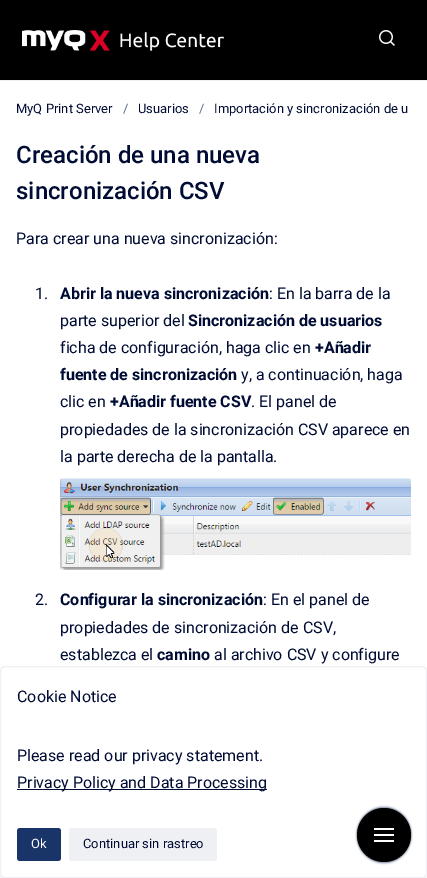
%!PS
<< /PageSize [427 878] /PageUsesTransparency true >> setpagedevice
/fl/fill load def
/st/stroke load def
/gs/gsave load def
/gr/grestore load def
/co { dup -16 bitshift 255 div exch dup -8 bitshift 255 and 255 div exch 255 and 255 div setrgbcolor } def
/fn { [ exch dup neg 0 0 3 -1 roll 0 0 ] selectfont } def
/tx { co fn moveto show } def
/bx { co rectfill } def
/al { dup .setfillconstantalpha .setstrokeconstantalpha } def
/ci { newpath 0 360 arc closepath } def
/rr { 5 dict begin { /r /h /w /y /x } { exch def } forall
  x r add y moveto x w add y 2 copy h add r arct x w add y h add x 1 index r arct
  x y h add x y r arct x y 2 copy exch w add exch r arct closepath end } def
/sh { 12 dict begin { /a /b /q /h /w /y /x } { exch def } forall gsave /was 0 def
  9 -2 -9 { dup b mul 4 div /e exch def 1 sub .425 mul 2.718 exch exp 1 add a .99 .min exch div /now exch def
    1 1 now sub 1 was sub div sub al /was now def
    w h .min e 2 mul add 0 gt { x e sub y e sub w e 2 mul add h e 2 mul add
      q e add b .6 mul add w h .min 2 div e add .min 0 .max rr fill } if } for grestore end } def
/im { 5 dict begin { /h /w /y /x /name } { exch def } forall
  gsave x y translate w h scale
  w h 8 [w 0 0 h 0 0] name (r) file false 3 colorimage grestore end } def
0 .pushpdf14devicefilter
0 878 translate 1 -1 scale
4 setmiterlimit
0 0 427 878 16#FFFFFF bx
0 0 427 80 16#000000 bx
0 80 427 1 16#EFF0F4 bx
(media/1.raw) 22 30 202 21 im
(media/2.raw) 379 30 16 16 im
(media/3.raw) 60 478 351 92 im
16#000000 co
3 679 421 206 2 7.5 .1 sh
16#FFFFFF co
.5 666.5 426 211 4.5 rr gs fl gr
16#EFF0F4 co
st
17 789 250 1 16#000C34 bx
16#193468 co
17 828 44 33 3 rr fl
16#EFF0F4 co
69 828 148 33 3 rr fl
16#7A869A co
357 807 54 54 27 1 1 sh
357 809 54 54 27 1 1 sh
16#000000 co
384 835 27 ci fl
374 828 20 2 16#FFFFFF bx
374 834 20 2 16#FFFFFF bx
374 840 20 2 16#FFFFFF bx
(MyQ Print Server) 16 113 /Roboto-Regular 13 16#000C34 tx
(/) 123 113 /Roboto-Regular 13 16#5D6B8F tx
(Usuarios) 138 113 /Roboto-Regular 13 16#000C34 tx
(/) 199 113 /Roboto-Regular 13 16#5D6B8F tx
(Importación y sincronización de u) 214 113 /Roboto-Regular 13 16#000C34 tx
(Creación de una nueva) 16 163 /Roboto-Medium 24 16#000C34 tx
(sincronización CSV) 16 199 /Roboto-Medium 24 16#000C34 tx
(Para crear una nueva sincronización:) 16 244 /Roboto-Regular 16 16#000C34 tx
(1.) 35 299 /Roboto-Regular 16 16#000C34 tx
(Abrir la nueva sincronización) 60 299 /Roboto-Bold 16 16#000C34 tx
(: En la barra de la) 269 299 /Roboto-Regular 16 16#000C34 tx
(parte superior del) 60 326 /Roboto-Regular 16 16#000C34 tx
(Sincronización de usuarios) 188 326 /Roboto-Bold 16 16#000C34 tx
(ficha de configuración, haga clic en) 60 353 /Roboto-Regular 16 16#000C34 tx
(+Añadir) 315 353 /Roboto-Bold 16 16#000C34 tx
(fuente de sincronización) 60 380 /Roboto-Bold 16 16#000C34 tx
(y, a continuación, haga) 241 380 /Roboto-Regular 16 16#000C34 tx
(clic en) 60 407 /Roboto-Regular 16 16#000C34 tx
(+Añadir fuente CSV) 110 407 /Roboto-Bold 16 16#000C34 tx
(. El panel de) 251 407 /Roboto-Regular 16 16#000C34 tx
(propiedades de la sincronización CSV aparece en) 60 435 /Roboto-Regular 16 16#000C34 tx
(la parte derecha de la pantalla.) 60 462 /Roboto-Regular 16 16#000C34 tx
(2.) 35 605 /Roboto-Regular 16 16#000C34 tx
(Configurar la sincronización) 60 605 /Roboto-Bold 16 16#000C34 tx
(: En el panel de) 263 605 /Roboto-Regular 16 16#000C34 tx
(propiedades de sincronización de CSV,) 60 633 /Roboto-Regular 16 16#000C34 tx
(establezca el) 60 660 /Roboto-Regular 16 16#000C34 tx
(camino) 157 660 /Roboto-Bold 16 16#000C34 tx
(al archivo CSV y configure) 214 660 /Roboto-Regular 16 16#000C34 tx
(Cookie Notice) 17 702 /Roboto-Regular 16 16#000C34 tx
(Please read our privacy statement.) 17 761 /Roboto-Regular 16 16#000C34 tx
(Privacy Policy and Data Processing) 17 788 /Roboto-Regular 16 16#000C34 tx
(Ok) 31 848 /Roboto-Regular 13 16#FFFFFF tx
(Continuar sin rastreo) 83 848 /Roboto-Regular 13 16#000C34 tx
.poppdf14devicefilter showpage
